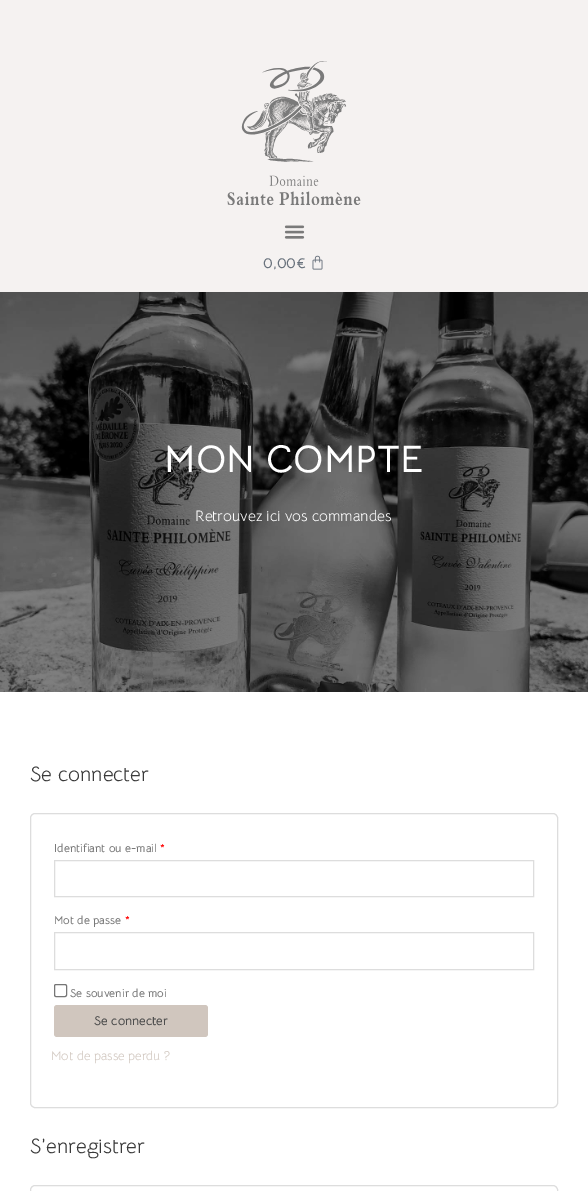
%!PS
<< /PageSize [588 1191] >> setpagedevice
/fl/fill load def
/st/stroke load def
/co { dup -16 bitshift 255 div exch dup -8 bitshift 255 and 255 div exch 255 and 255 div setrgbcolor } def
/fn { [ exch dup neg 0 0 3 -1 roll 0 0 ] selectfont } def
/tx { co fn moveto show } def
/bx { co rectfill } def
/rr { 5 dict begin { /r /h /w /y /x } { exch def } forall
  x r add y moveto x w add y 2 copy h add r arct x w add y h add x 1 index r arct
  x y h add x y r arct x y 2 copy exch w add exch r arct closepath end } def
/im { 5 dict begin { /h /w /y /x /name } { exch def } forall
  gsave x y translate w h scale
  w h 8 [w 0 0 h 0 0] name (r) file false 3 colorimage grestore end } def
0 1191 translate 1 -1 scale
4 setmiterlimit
0 0 588 1191 16#FFFFFF bx
0 0 588 292 16#F5F2F1 bx
(media/1.raw) 227 61 134 144 im
(media/2.raw) 284 225 21 14 im
(media/3.raw) 312 255 11 15 im
(media/4.raw) 0 292 588 400 im
16#DDDDDD co
30.5 813.5 527 294 4.5 rr st
54.5 860.5 479 36 rectstroke
54.5 932.5 479 37 rectstroke
16#767676 co
54.5 984.5 12 12 1.5 rr st
16#D0C6BE co
54 1005 154 32 3 rr fl
16#DDDDDD co
30.5 1185.5 527 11 4.5 rr st
(0,00€) 263 268 /BellotaText-Bold 15 16#69727D tx
(MON COMPTE) 164 472 /BellotaText-Bold 38.25 16#FFFFFF tx
(Retrouvez ici vos commandes) 195 521 /BellotaText-Regular 15.25 16#FFFFFF tx
(Se connecter) 30 781 /BellotaText-Regular 20.75 16#3A3A3A tx
(Identifiant ou e-mail) 54 852 /BellotaText-Bold 11.5 16#7A7A7A tx
(*) 160 852 /BellotaText-Bold 11.5 16#FF0000 tx
(Mot de passe) 54 924 /BellotaText-Bold 11.5 16#7A7A7A tx
(*) 125 924 /BellotaText-Bold 11.5 16#FF0000 tx
(Se souvenir de moi) 70 997 /BellotaText-Bold 11.5 16#7A7A7A tx
(Se connecter) 94 1025 /BellotaText-Bold 12.75 16#4D4D4D tx
(Mot de passe perdu ?) 51 1060 /BellotaText-Regular 12.75 16#D0C6BE tx
(S’enregistrer) 30 1153 /BellotaText-Regular 20.75 16#3A3A3A tx
showpage
